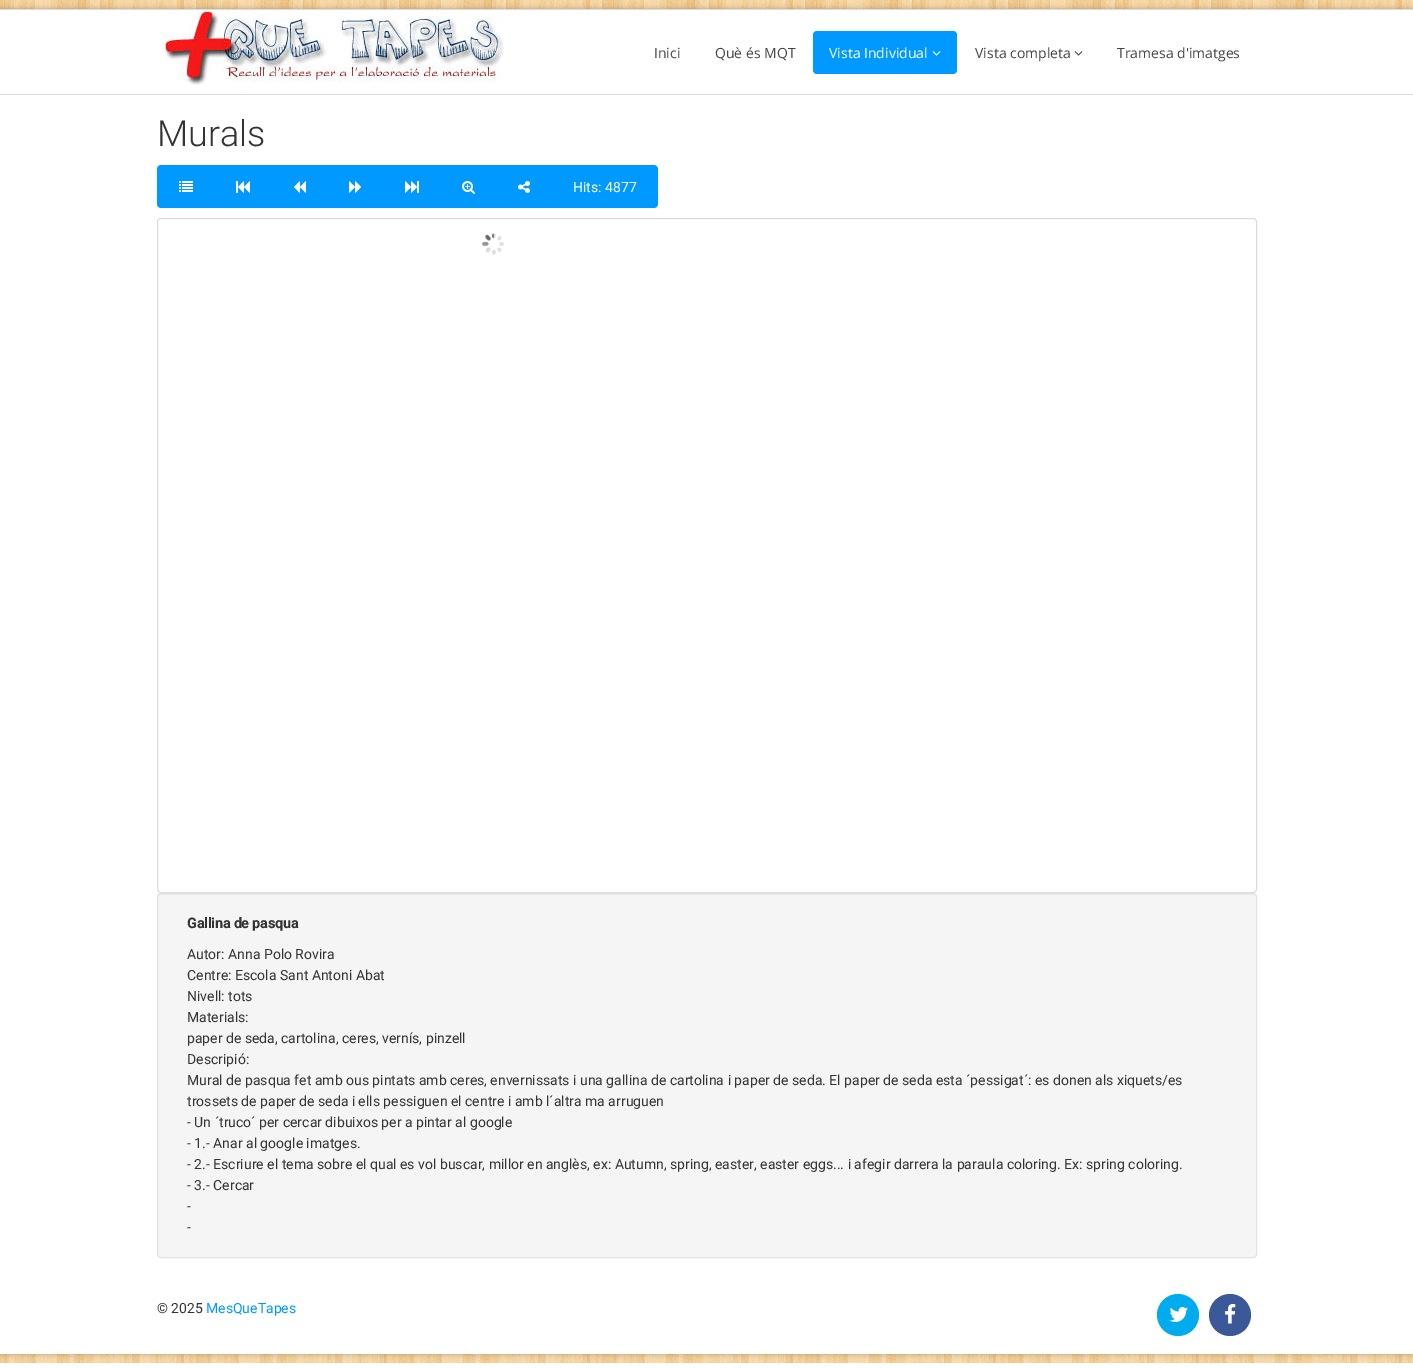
%!PS
<< /PageSize [1413 1369] /PageUsesTransparency true >> setpagedevice
/mt/moveto load def
/li/lineto load def
/ct/curveto load def
/cp/closepath load def
/fl/fill load def
/st/stroke load def
/co { dup -16 bitshift 255 div exch dup -8 bitshift 255 and 255 div exch 255 and 255 div setrgbcolor } def
/fn { [ exch dup neg 0 0 3 -1 roll 0 0 ] selectfont } def
/tx { co fn moveto show } def
/bx { co rectfill } def
/al { dup .setfillconstantalpha .setstrokeconstantalpha } def
/ci { newpath 0 360 arc closepath } def
/rr { 5 dict begin { /r /h /w /y /x } { exch def } forall
  x r add y moveto x w add y 2 copy h add r arct x w add y h add x 1 index r arct
  x y h add x y r arct x y 2 copy exch w add exch r arct closepath end } def
/sh { 12 dict begin { /a /b /q /h /w /y /x } { exch def } forall gsave /was 0 def
  9 -2 -9 { dup b mul 4 div /e exch def 1 sub .425 mul 2.718 exch exp 1 add a .99 .min exch div /now exch def
    1 1 now sub 1 was sub div sub al /was now def
    w h .min e 2 mul add 0 gt { x e sub y e sub w e 2 mul add h e 2 mul add
      q e add b .6 mul add w h .min 2 div e add .min 0 .max rr fill } if } for grestore end } def
/im { 5 dict begin { /h /w /y /x /name } { exch def } forall
  gsave x y translate w h scale
  w h 8 [w 0 0 h 0 0] name (r) file false 3 colorimage grestore end } def
0 .pushpdf14devicefilter
0 1369 translate 1 -1 scale
4 setmiterlimit
0 0 1413 1369 16#FFFFFF bx
(media/1.raw) 0 0 1413 1363 im
16#000000 co
0 9 1413 1345 0 3 .27 sh
0 10 1413 1344 16#FFFFFF bx
0 9 1413 1 16#DDDDDD bx
0 94 1413 1 16#DDDDDD bx
(media/2.raw) 165 10 339 75 im
16#0099FF co
813 31 144 43 4 rr fl
(media/3.raw) 932 51 9 5 im
(media/4.raw) 1074 51 9 5 im
161 165 mt 215 165 li 215 208 li 161 208 li 159 208 157 206 157 204 ct 157 169 li 157 167 159 165 161 165 ct cp fl
(media/5.raw) 179 181 14 11 im
215 165 336 43 16#0099FF bx
(media/6.raw) 236 181 14 12 im
(media/7.raw) 294 181 12 12 im
(media/8.raw) 349 181 12 12 im
(media/9.raw) 405 181 14 12 im
(media/10.raw) 462 181 13 13 im
(media/11.raw) 518 181 12 12 im
551 165 mt 654 165 li 656 165 658 167 658 169 ct 658 204 li 658 206 656 208 654 208 ct 551 208 li cp fl
(media/12.raw) 482 233 22 22 im
16#DDDDDD co
157.5 218.5 1099 674 3.5 rr st
16#F5F5F5 co
157 893 1100 365 4 rr fl
16#E9E9E9 co
161 895 mt 1253 895 li 1255 895 1256 896 1256 898 ct 1256 897 li 1256 895 1255 894 1253 894 ct 161 894 li 159 894 158 895 158 897 ct 158 898 li 158 896 159 895 161 895 ct cp fl
16#E3E3E3 co
157.5 893.5 1099 364 3.5 rr st
16#00ACED co
1178 1315 21 ci fl
(media/13.raw) 1169 1307 19 15 im
16#3B5998 co
1230 1315 21 ci fl
(media/14.raw) 1225 1304 11 20 im
(Inici) 654 58 /OpenSans-Regular 14 16#444444 tx
(Què és MQT) 715 58 /OpenSans-Regular 14 16#444444 tx
(Vista Individual) 829 58 /OpenSans-Regular 14 16#FFFFFF tx
(Vista completa) 975 58 /OpenSans-Regular 14 16#444444 tx
(Tramesa d'imatges) 1117 58 /OpenSans-Regular 14 16#444444 tx
(Murals) 157 146 /Roboto-Light 36 16#333333 tx
(Hits: 4877) 573 192 /Roboto-Regular 14 16#FFFFFF tx
(Gallina de pasqua) 187 928 /Roboto-Bold 14 16#333333 tx
(Autor: Anna Polo Rovira) 187 959 /Roboto-Regular 14 16#333333 tx
(Centre: Escola Sant Antoni Abat) 187 980 /Roboto-Regular 14 16#333333 tx
(Nivell: tots) 187 1001 /Roboto-Regular 14 16#333333 tx
(Materials:) 187 1022 /Roboto-Regular 14 16#333333 tx
(paper de seda, cartolina, ceres, vernís, pinzell) 187 1043 /Roboto-Regular 14 16#333333 tx
(Descripió:) 187 1064 /Roboto-Regular 14 16#333333 tx
(Mural de pasqua fet amb ous pintats amb ceres, envernissats i una gallina de cartolina i paper de seda. El paper de seda esta ´pessigat´: es donen als xiquets/es) 187 1085 /Roboto-Regular 14 16#333333 tx
(trossets de paper de seda i ells pessiguen el centre i amb l´altra ma arruguen) 187 1106 /Roboto-Regular 14 16#333333 tx
(- Un ´truco´ per cercar dibuixos per a pintar al google) 187 1127 /Roboto-Regular 14 16#333333 tx
(- 1.- Anar al google imatges.) 187 1148 /Roboto-Regular 14 16#333333 tx
(- 2.- Escriure el tema sobre el qual es vol buscar, millor en anglès, ex: Autumn, spring, easter, easter eggs... i afegir darrera la paraula coloring. Ex: spring coloring.) 187 1169 /Roboto-Regular 14 16#333333 tx
(- 3.- Cercar) 187 1190 /Roboto-Regular 14 16#333333 tx
(-) 187 1211 /Roboto-Regular 14 16#333333 tx
(-) 187 1232 /Roboto-Regular 14 16#333333 tx
(© 2025) 157 1313 /Roboto-Regular 14 16#333333 tx
(MesQueTapes) 206 1313 /Roboto-Regular 14 16#0099FF tx
.poppdf14devicefilter showpage
